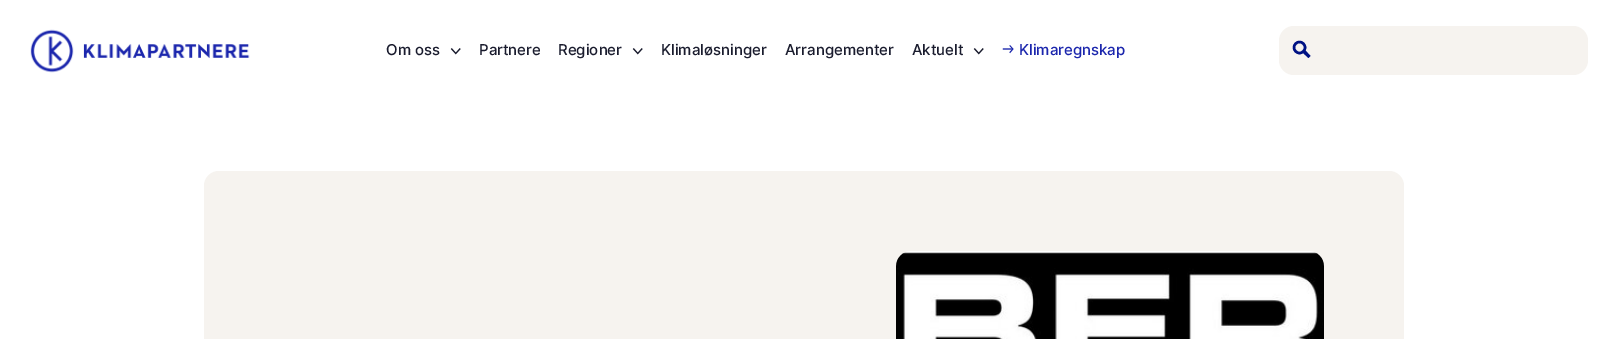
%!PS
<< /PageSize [1608 339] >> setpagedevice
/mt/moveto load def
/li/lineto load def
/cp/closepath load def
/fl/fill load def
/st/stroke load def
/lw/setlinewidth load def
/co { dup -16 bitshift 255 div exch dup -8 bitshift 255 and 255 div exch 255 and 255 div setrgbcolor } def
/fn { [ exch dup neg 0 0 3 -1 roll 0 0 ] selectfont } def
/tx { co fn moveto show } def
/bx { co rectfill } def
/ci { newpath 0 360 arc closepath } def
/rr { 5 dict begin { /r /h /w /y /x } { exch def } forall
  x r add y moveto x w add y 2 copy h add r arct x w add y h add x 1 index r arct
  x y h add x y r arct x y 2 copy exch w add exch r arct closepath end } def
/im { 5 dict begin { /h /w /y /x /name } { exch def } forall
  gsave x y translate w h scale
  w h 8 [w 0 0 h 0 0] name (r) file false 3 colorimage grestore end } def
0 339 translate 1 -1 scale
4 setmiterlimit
0 0 1608 339 16#FFFFFF bx
(media/1.raw) 30 29 220 44 im
(media/2.raw) 450 48 11 7 im
(media/2.raw) 632 48 11 7 im
(media/2.raw) 973 48 11 7 im
(media/3.raw) 1002 45 12 9 im
16#F6F3EF co
1279 26 309 49 15 rr fl
16#001284 co
1305 50 mt 1310.5 56 li 1308.5 58 li 1302.5 52.5 li cp fl
2.5 lw
1299.5 47.5 5.5 ci st
16#F6F3EF co
204 171 1200 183 15 rr fl
(media/4.raw) 896 251 428 88 im
(Om oss) 386 55 /Inter-Medium 15 16#1A1C2E tx
(Partnere) 479 55 /Inter-Medium 15 16#1A1C2E tx
(Regioner) 558 55 /Inter-Medium 15 16#1A1C2E tx
(Klimaløsninger) 661 55 /Inter-Medium 15 16#1A1C2E tx
(Arrangementer) 785 55 /Inter-Medium 15 16#1A1C2E tx
(Aktuelt) 912 55 /Inter-Medium 15 16#1A1C2E tx
(Klimaregnskap) 1019 55 /Inter-Medium 15 16#1B26AD tx
showpage
